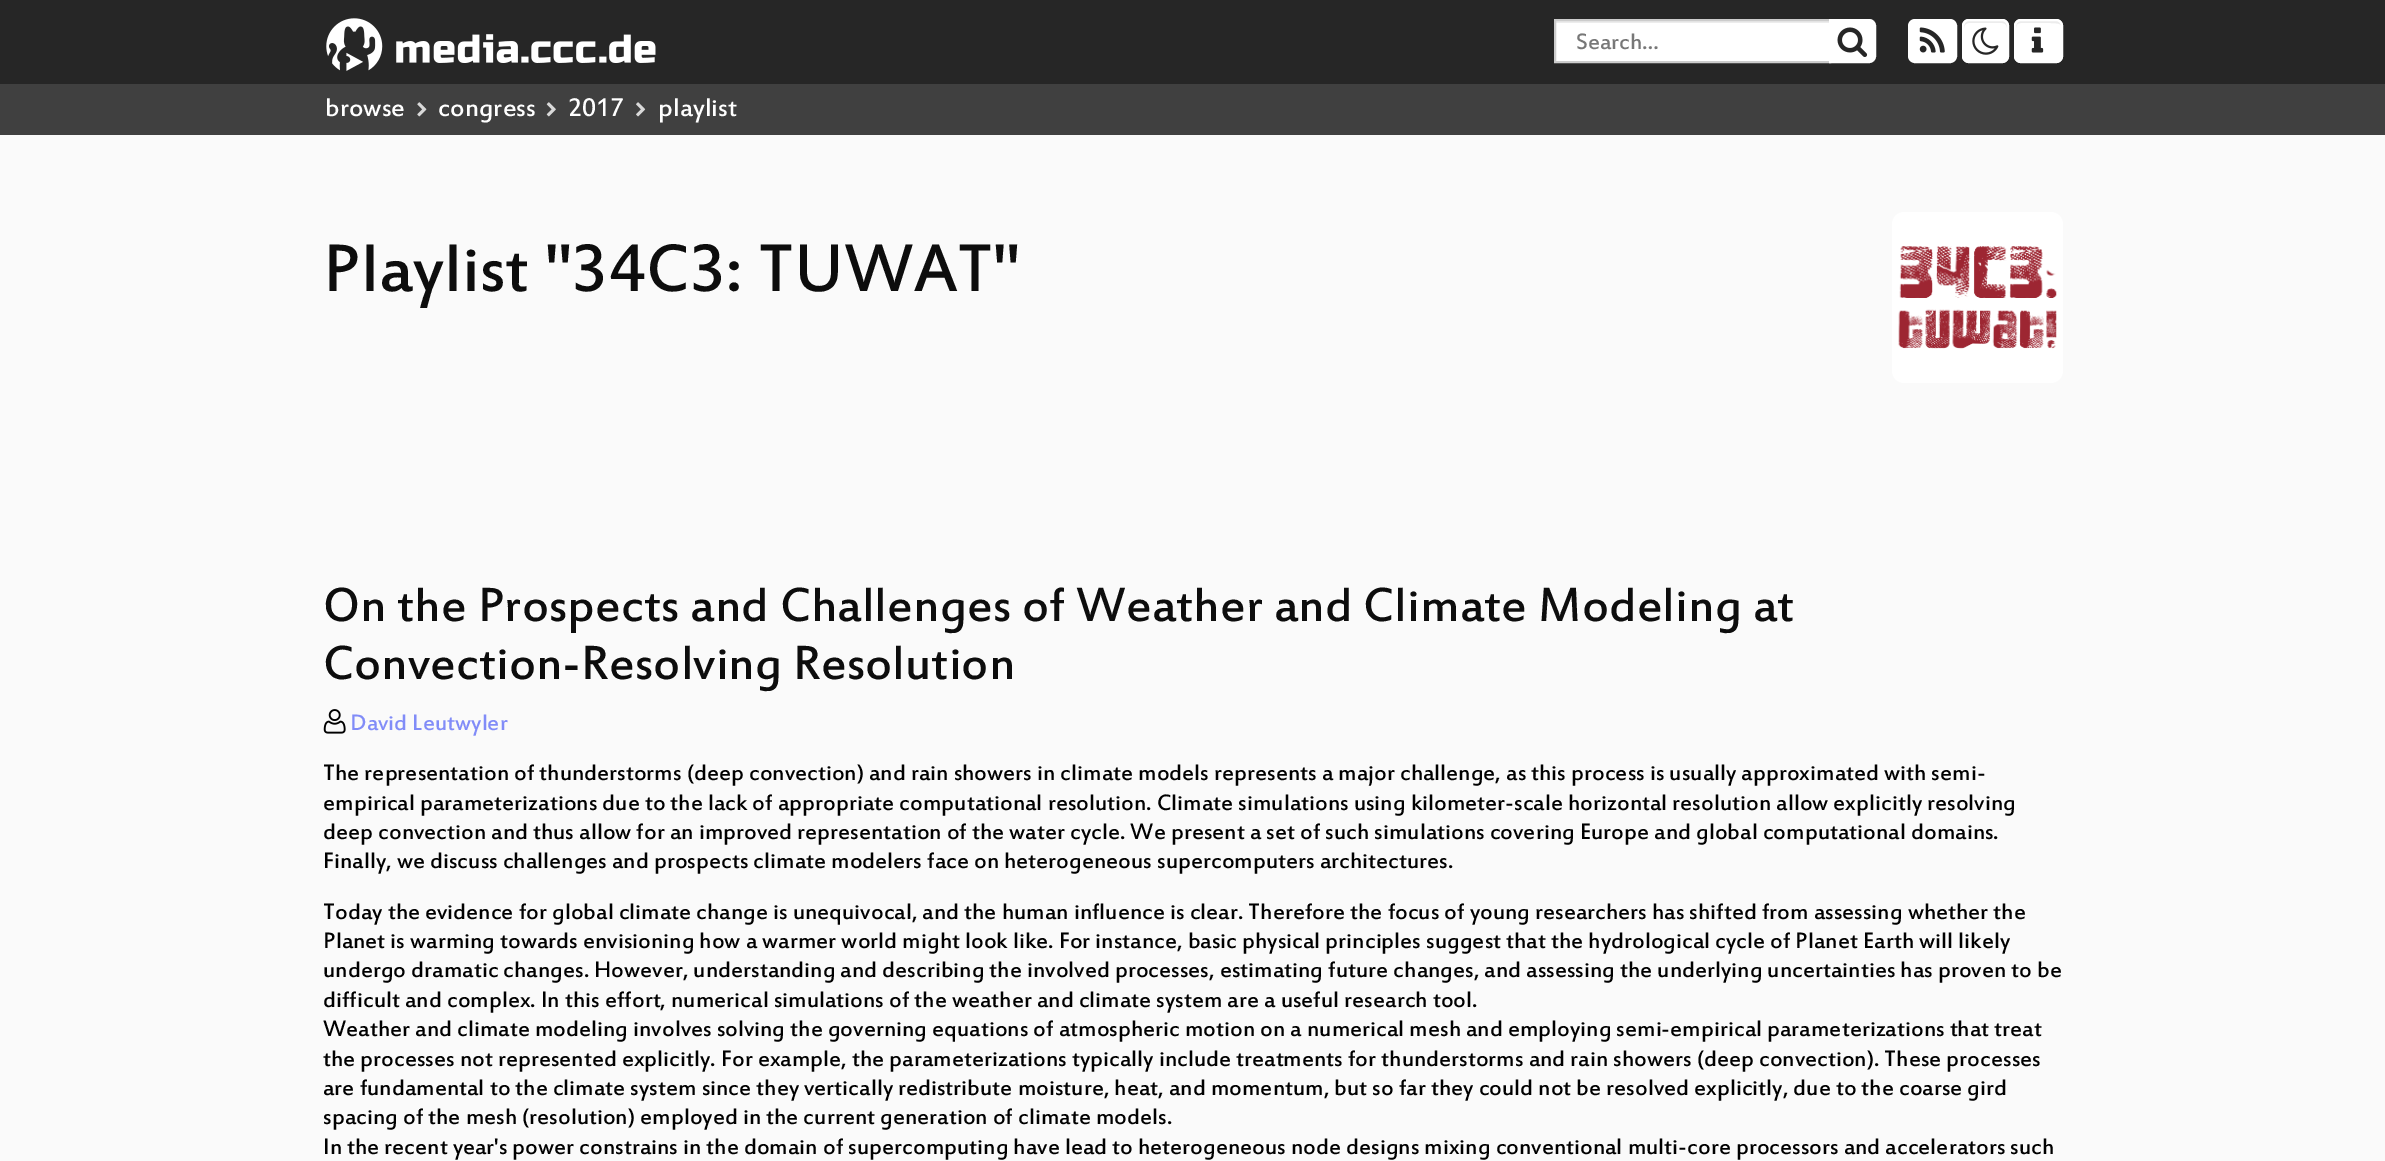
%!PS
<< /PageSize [2385 1161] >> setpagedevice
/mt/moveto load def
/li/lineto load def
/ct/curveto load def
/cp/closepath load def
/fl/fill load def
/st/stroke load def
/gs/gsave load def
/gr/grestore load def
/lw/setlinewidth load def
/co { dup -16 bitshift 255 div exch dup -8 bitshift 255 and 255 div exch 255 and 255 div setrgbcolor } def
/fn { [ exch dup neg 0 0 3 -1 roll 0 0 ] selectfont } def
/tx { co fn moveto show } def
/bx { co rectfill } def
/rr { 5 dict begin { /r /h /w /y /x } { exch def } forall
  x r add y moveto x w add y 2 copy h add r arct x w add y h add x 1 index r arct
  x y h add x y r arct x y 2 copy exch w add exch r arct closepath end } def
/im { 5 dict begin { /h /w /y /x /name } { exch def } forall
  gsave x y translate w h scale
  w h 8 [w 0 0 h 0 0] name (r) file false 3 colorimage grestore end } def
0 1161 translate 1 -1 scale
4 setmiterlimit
0 0 2385 1161 16#FAFAFA bx
0 0 2385 84 16#262626 bx
(media/1.raw) 326 18 330 53 im
1556 23 273 38 16#FFFFFF bx
1556 21 273 2 16#ECECEC bx
16#CCCCCC co
2 lw
1555 20 275 42 rectstroke
16#FFFFFF co
1830 20 mt 1869 20 li 1872.5 20 1875 22.5 1875 26 ct 1875 56 li 1875 59.5 1872.5 62 1869 62 ct 1830 62 li cp gs fl gr
st
(media/2.raw) 1837 27 31 30 im
1909 20 47 42 6 rr gs fl gr
st
(media/3.raw) 1919 27 26 26 im
1962 19 47 44 7 rr fl
16#ECECEC co
1969 23 mt 2002 23 li 2005 23 2007 25 2007 28 ct 2007 20 2003 21 1996 21 ct 1974 21 li 1968 21 1964 20 1964 28 ct 1964 25 1966 23 1969 23 ct cp fl
16#FFFFFF co
1963 20 45 42 6 rr st
(media/4.raw) 1972 27 27 28 im
2014 19 49 44 7 rr fl
16#ECECEC co
2021 23 mt 2050 23 li 2059 23 2062 24 2062 28 ct 2062 20 2058 21 2051 21 ct 2027 21 li 2020 21 2016 20 2016 28 ct 2016 25 2017 23 2021 23 ct cp 2016 57 mt 2016 53 li cp eofill
16#FFFFFF co
2015 20 47 42 6 rr st
(media/5.raw) 2031 27 13 26 im
0 84 2385 51 16#404040 bx
(media/6.raw) 417 102 10 15 im
(media/7.raw) 546 102 10 15 im
(media/8.raw) 636 102 10 15 im
16#FFFFFF co
1892 212 171 171 12 rr fl
(media/9.raw) 1898 246 159 103 im
(media/10.raw) 323 709 23 25 im
(Search…) 1576 49 /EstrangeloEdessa-Regular 24.5 16#777777 tx
(browse) 325 116 /EstrangeloEdessa-Regular 28 16#FFFFFF tx
(congress) 438 116 /EstrangeloEdessa-Regular 28 16#FFFFFF tx
(2017) 568 116 /EstrangeloEdessa-Regular 28 16#FFFFFF tx
(playlist) 658 116 /EstrangeloEdessa-Regular 28 16#FFFFFF tx
(Playlist "34C3: TUWAT") 323 291 /EstrangeloEdessa-Regular 73.5 16#0D0D0D tx
(On the Prospects and Challenges of Weather and Climate Modeling at) 323 621 /EstrangeloEdessa-Regular 52.5 16#0D0D0D tx
(Convection-Resolving Resolution) 323 679 /EstrangeloEdessa-Regular 52.5 16#0D0D0D tx
(David Leutwyler) 350 730 /EstrangeloEdessa-Regular 24.5 16#818CF8 tx
(The representation of thunderstorms \(deep convection\) and rain showers in climate models represents a major challenge, as this process is usually approximated with semi-) 323 780 /EstrangeloEdessa-Regular 24.5 16#000000 tx
(empirical parameterizations due to the lack of appropriate computational resolution. Climate simulations using kilometer-scale horizontal resolution allow explicitly resolving) 323 810 /EstrangeloEdessa-Regular 24.5 16#000000 tx
(deep convection and thus allow for an improved representation of the water cycle. We present a set of such simulations covering Europe and global computational domains.) 323 839 /EstrangeloEdessa-Regular 24.5 16#000000 tx
(Finally, we discuss challenges and prospects climate modelers face on heterogeneous supercomputers architectures.) 323 868 /EstrangeloEdessa-Regular 24.5 16#000000 tx
(Today the evidence for global climate change is unequivocal, and the human influence is clear. Therefore the focus of young researchers has shifted from assessing whether the) 323 919 /EstrangeloEdessa-Regular 24.5 16#000000 tx
(Planet is warming towards envisioning how a warmer world might look like. For instance, basic physical principles suggest that the hydrological cycle of Planet Earth will likely) 323 948 /EstrangeloEdessa-Regular 24.5 16#000000 tx
(undergo dramatic changes. However, understanding and describing the involved processes, estimating future changes, and assessing the underlying uncertainties has proven to be) 323 977 /EstrangeloEdessa-Regular 24.5 16#000000 tx
(difficult and complex. In this effort, numerical simulations of the weather and climate system are a useful research tool.) 323 1007 /EstrangeloEdessa-Regular 24.5 16#000000 tx
(Weather and climate modeling involves solving the governing equations of atmospheric motion on a numerical mesh and employing semi-empirical parameterizations that treat) 323 1036 /EstrangeloEdessa-Regular 24.5 16#000000 tx
(the processes not represented explicitly. For example, the parameterizations typically include treatments for thunderstorms and rain showers \(deep convection\). These processes) 323 1066 /EstrangeloEdessa-Regular 24.5 16#000000 tx
(are fundamental to the climate system since they vertically redistribute moisture, heat, and momentum, but so far they could not be resolved explicitly, due to the coarse gird) 323 1095 /EstrangeloEdessa-Regular 24.5 16#000000 tx
(spacing of the mesh \(resolution\) employed in the current generation of climate models.) 323 1124 /EstrangeloEdessa-Regular 24.5 16#000000 tx
(In the recent year's power constrains in the domain of supercomputing have lead to heterogeneous node designs mixing conventional multi-core processors and accelerators such) 323 1154 /EstrangeloEdessa-Regular 24.5 16#000000 tx
showpage
